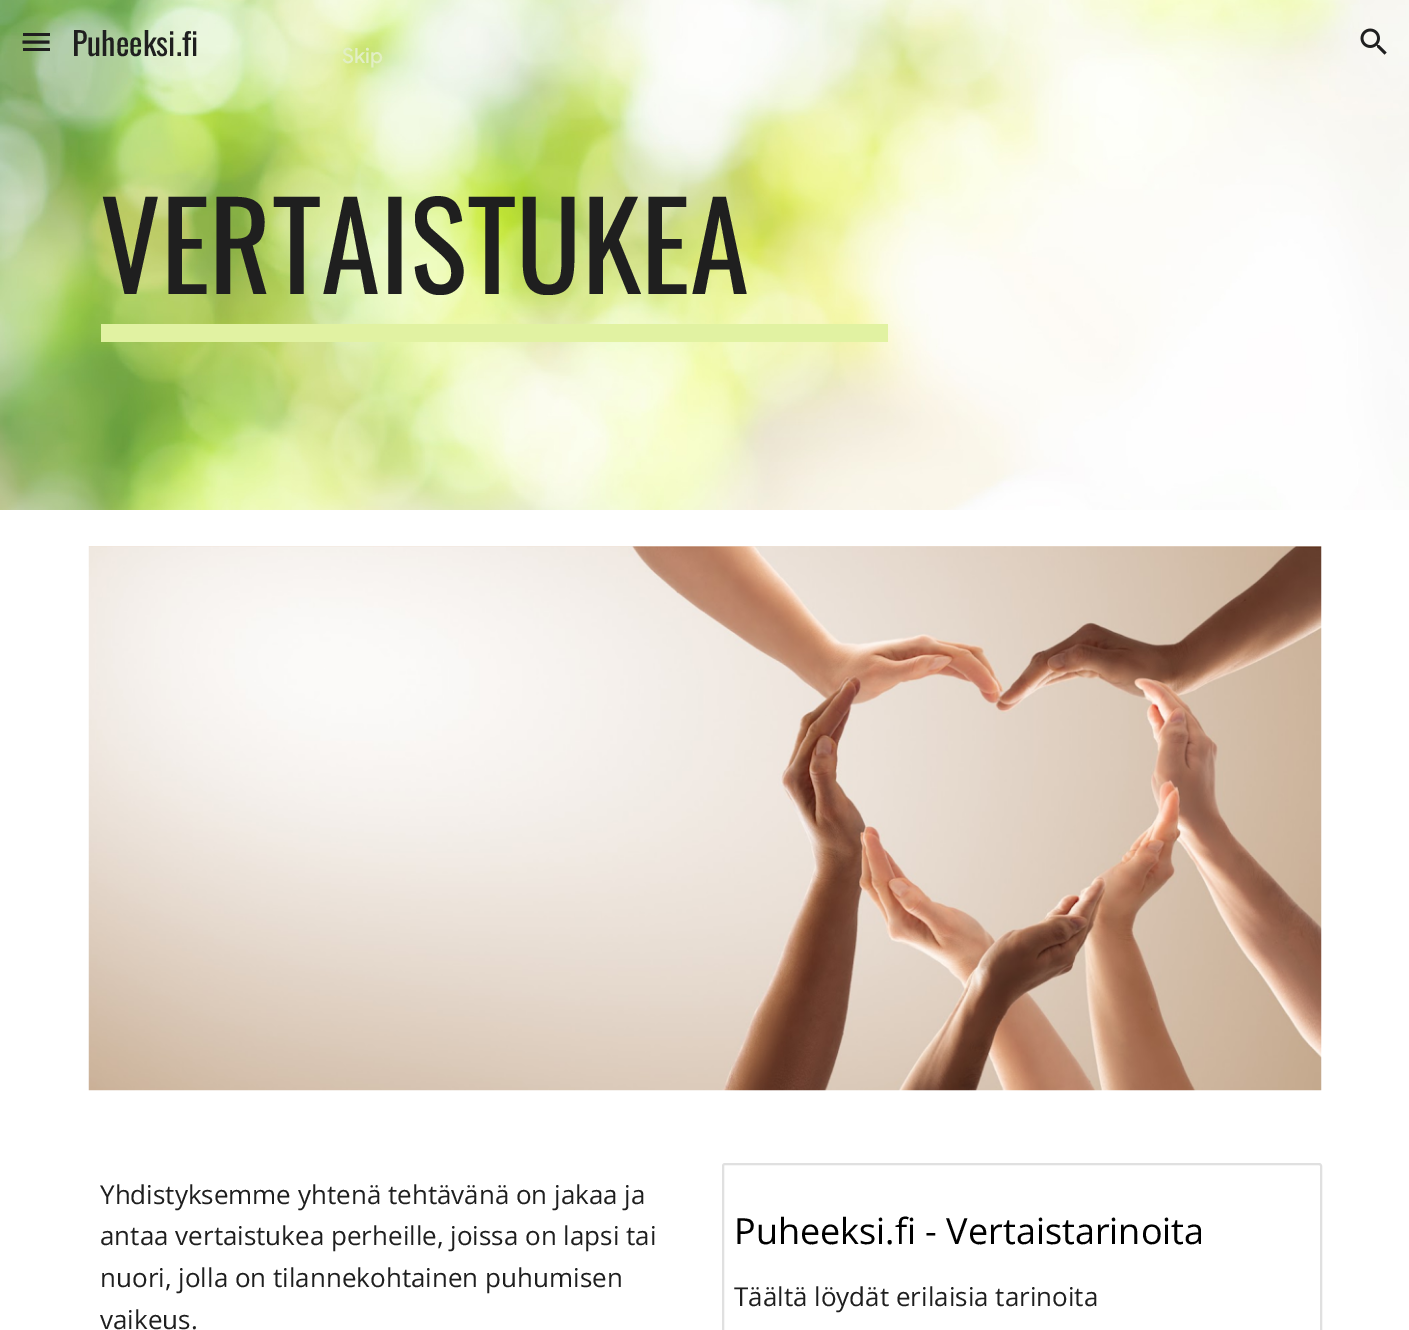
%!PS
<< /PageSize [1409 1330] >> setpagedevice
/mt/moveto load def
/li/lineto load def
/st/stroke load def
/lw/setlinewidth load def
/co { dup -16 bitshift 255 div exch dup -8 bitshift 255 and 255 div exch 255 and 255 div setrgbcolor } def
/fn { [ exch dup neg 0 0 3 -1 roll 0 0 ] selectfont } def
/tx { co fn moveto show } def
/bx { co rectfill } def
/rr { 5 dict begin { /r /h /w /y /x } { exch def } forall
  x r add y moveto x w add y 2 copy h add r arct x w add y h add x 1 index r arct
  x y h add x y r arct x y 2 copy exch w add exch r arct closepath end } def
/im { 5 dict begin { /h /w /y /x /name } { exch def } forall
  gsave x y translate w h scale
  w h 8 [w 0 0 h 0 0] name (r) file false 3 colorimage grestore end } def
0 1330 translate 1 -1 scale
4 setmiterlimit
0 0 1409 1330 16#FFFFFF bx
(media/2.raw) 0 0 1409 510 im
23 33 27 3 16#1F1F1F bx
3 lw
22.5 42 mt 49.5 42 li st
23 48 27 3 16#1F1F1F bx
(media/1.raw) 1360 28 27 27 im
101 324 787 18 16#E1F2A2 bx
(media/3.raw) 88 546 1234 545 im
16#E0E0E0 co
2 lw
723 1164 598 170 2 rr st
(Puheeksi.fi) 72 56 /Oswald-Regular 32 16#1F1F1F tx
(VERTAISTUKEA) 100 294 /Oswald-Regular 120 16#1F1F1F tx
(Yhdistyksemme yhtenä tehtävänä on jakaa ja) 100 1204 /OpenSans-Regular 26 16#1F1F1F tx
(antaa vertaistukea perheille, joissa on lapsi tai) 100 1245 /OpenSans-Regular 26 16#1F1F1F tx
(nuori, jolla on tilannekohtainen puhumisen) 100 1287 /OpenSans-Regular 26 16#1F1F1F tx
(vaikeus.) 100 1329 /OpenSans-Regular 26 16#1F1F1F tx
(Puheeksi.fi - Vertaistarinoita) 734 1244 /OpenSans-Regular 36 16#000000 tx
(Täältä löydät erilaisia tarinoita) 734 1306 /OpenSans-Regular 26 16#1F1F1F tx
(Skip) 342 63 /GoogleSans-Medium 21 16#E2EFC5 tx
showpage
